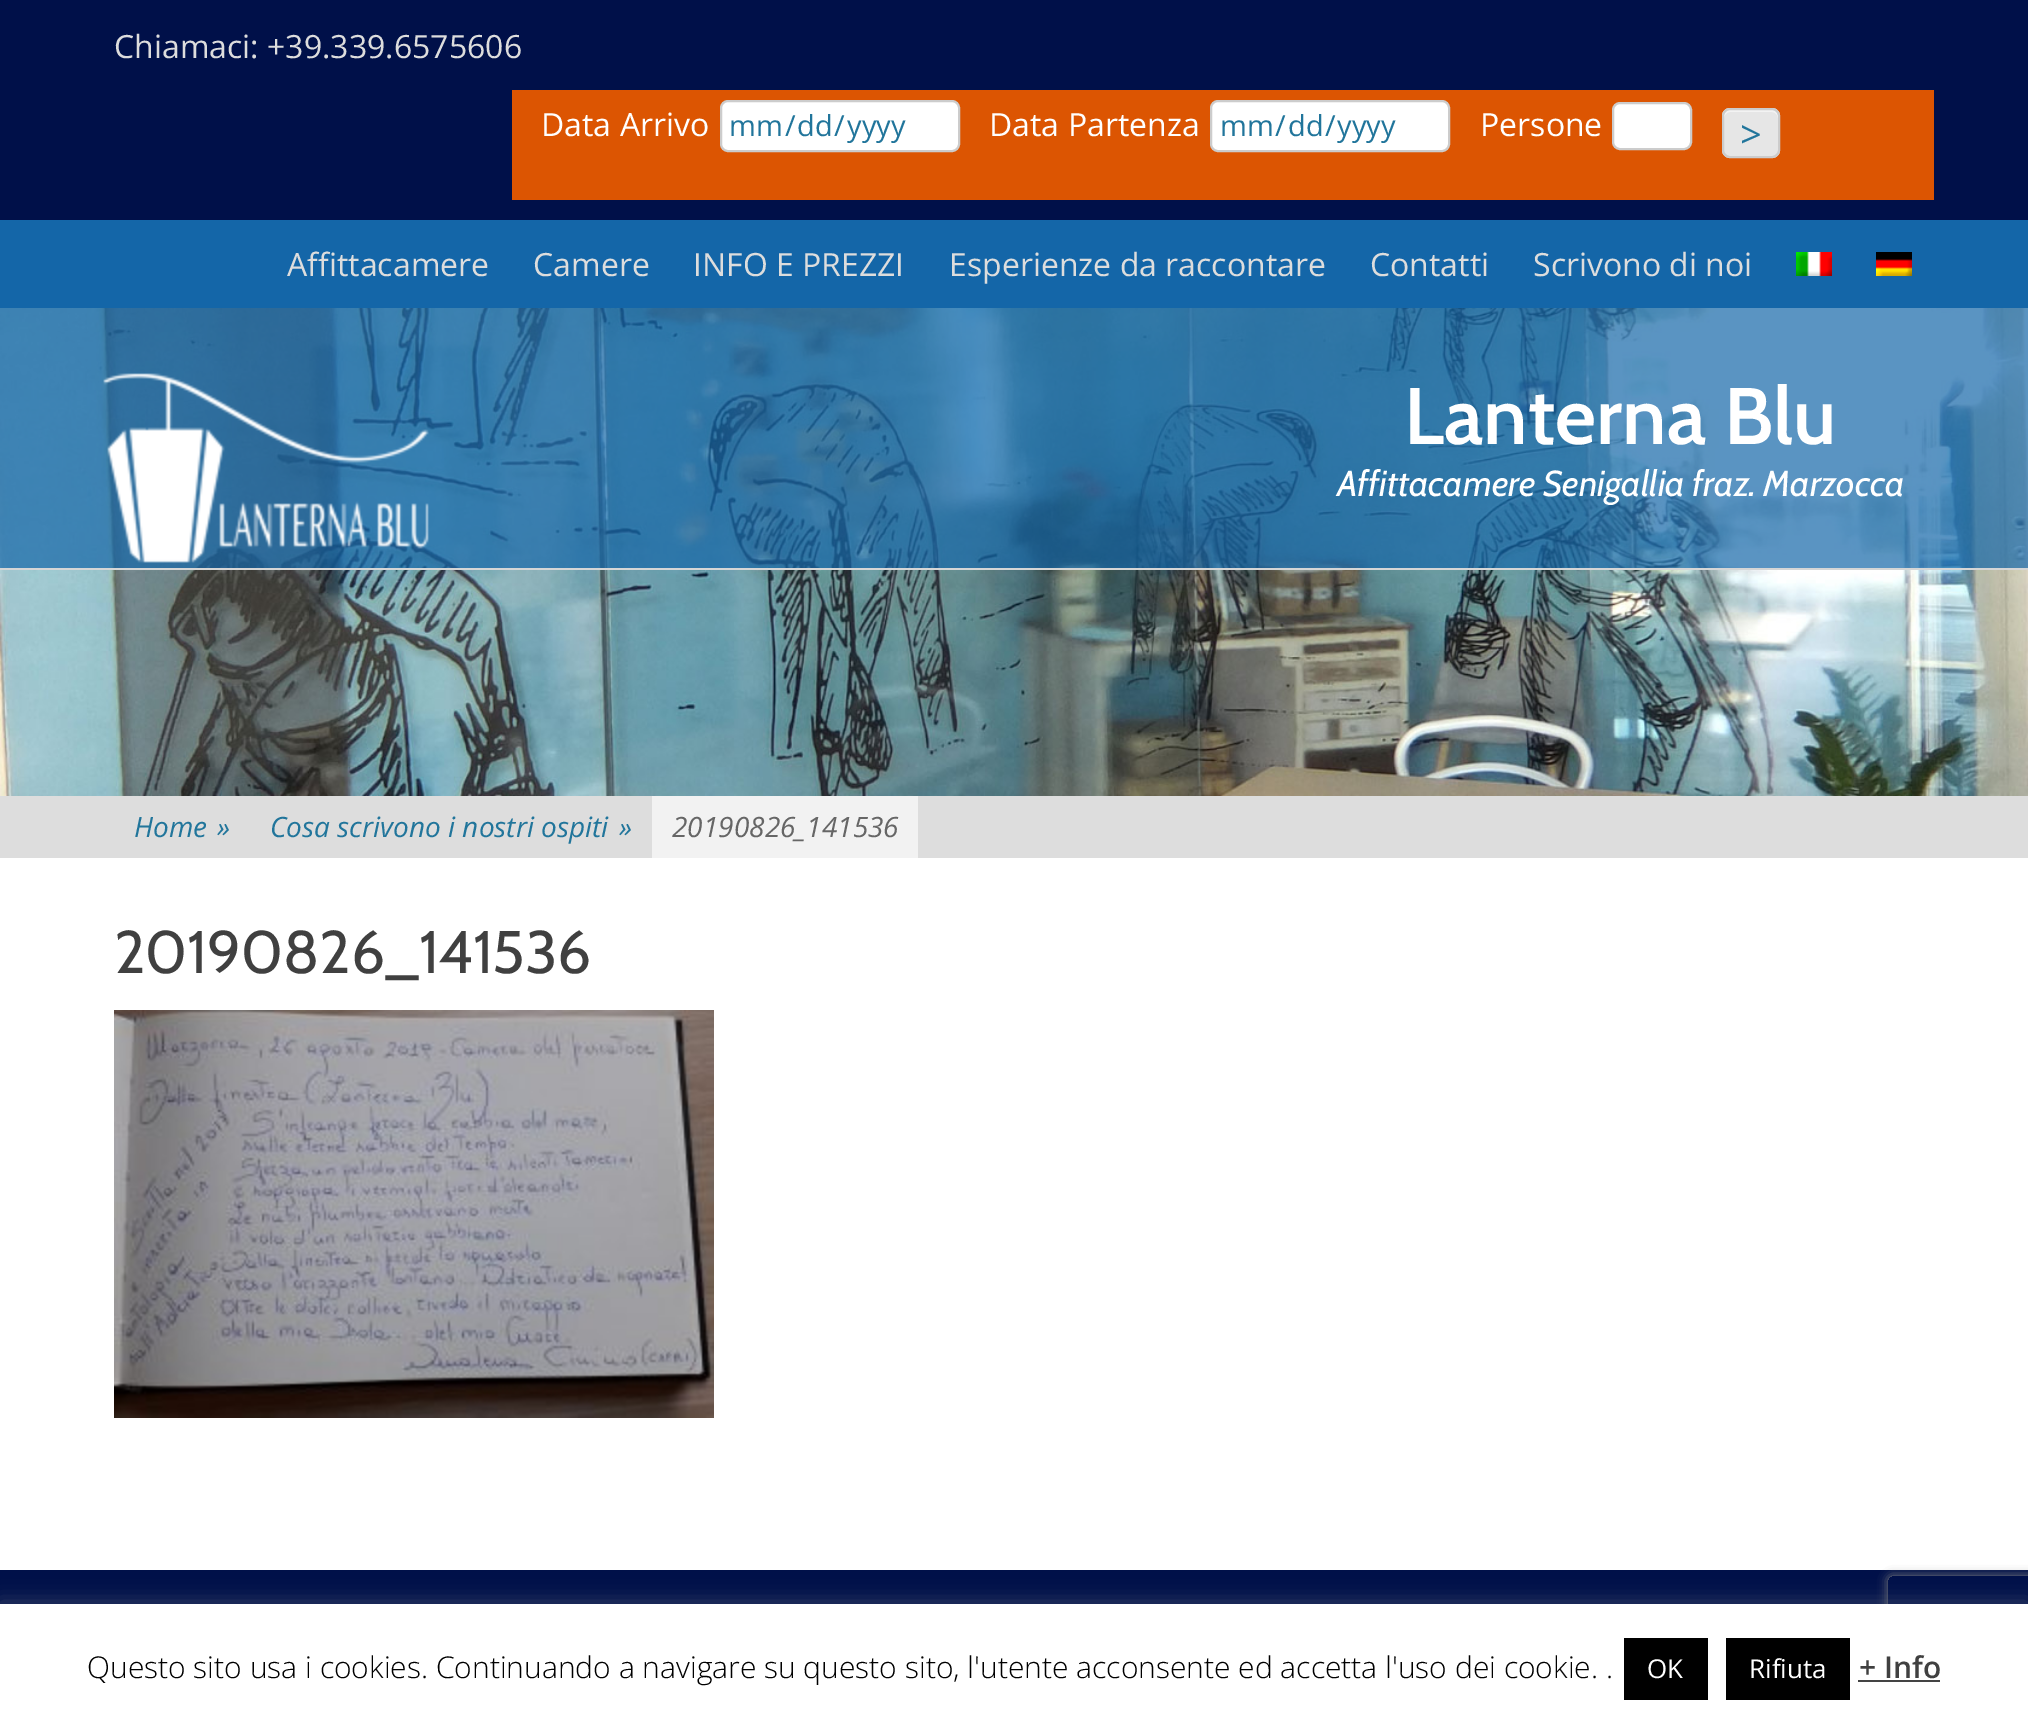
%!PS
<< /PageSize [2028 1723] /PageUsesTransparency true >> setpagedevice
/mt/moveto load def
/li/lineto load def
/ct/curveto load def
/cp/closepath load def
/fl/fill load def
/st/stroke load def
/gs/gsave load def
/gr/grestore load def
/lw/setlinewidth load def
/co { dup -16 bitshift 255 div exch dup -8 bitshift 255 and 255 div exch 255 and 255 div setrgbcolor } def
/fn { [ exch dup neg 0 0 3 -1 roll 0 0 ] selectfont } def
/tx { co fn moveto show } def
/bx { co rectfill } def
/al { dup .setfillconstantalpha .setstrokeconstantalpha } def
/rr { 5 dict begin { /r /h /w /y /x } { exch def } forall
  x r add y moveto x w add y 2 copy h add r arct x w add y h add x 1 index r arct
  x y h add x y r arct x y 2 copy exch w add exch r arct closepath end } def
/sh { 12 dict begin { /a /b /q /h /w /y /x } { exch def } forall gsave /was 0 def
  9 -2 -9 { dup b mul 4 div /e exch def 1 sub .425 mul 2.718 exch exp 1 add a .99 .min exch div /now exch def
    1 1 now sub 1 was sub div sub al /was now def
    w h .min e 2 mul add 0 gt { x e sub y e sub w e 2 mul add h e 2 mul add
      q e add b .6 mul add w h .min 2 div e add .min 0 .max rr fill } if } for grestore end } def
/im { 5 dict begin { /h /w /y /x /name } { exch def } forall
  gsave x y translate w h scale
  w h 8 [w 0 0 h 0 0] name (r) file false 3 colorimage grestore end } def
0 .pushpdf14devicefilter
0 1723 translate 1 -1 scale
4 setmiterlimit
0 0 2028 1723 16#FFFFFF bx
0 0 2028 220 16#001049 bx
512 90 1422 110 16#DC5502 bx
16#FFFFFF co
721 101 238 50 7 rr gs fl gr
16#CCCCCC co
2 lw
st
16#FFFFFF co
1211 101 238 50 7 rr gs fl gr
16#CCCCCC co
st
16#FFFFFF co
1613 103 78 46 7 rr gs fl gr
16#CCCCCC co
st
16#E6E6E6 co
1722 108 58 50 8 rr fl
16#F3F3F3 co
1730 112 mt 1772 112 li 1775 112 1778 115 1778 118 ct 1778 109 1773 110 1765 110 ct 1737 110 li 1729 110 1724 109 1724 118 ct 1724 115 1727 112 1730 112 ct cp fl
16#CCCCCC co
1723 109 56 48 7 rr st
0 220 2028 88 16#1466A8 bx
(media/1.raw) 1796 252 36 24 im
(media/2.raw) 1876 252 36 24 im
(media/4.raw) 0 308 2028 488 im
0.7 al
0 308 2028 260 16#1466A8 bx
1 al
0 568 2028 2 16#D6D6D6 bx
(media/3.raw) 103 373 326 190 im
0 796 2028 62 16#DDDDDD bx
652 796 266 62 16#F2F2F2 bx
(media/5.raw) 114 1010 600 408 im
0 1570 2028 34 16#001049 bx
16#ACABAB co
0 1602 2028 120 0 10 .3 sh
gs
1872 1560 mt 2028 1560 li 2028 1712 li 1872 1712 li cp 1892 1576 mt 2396 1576 li 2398 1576 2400 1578 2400 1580 ct 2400 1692 li 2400 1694 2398 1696 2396 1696 ct 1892 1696 li 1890 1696 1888 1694 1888 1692 ct 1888 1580 li 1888 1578 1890 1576 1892 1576 ct cp eoclip newpath
16#808080 co
1888 1576 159 120 4 5 1 sh
gr
0 1604 2028 119 16#FFFFFF bx
1624 1638 84 62 16#000000 bx
1726 1638 124 62 16#000000 bx
1858 1680 82 2 16#444444 bx
(Chiamaci: +39.339.6575606) 114 58 /OpenSans-Regular 32 16#DDDDDD tx
(Data Arrivo) 541 136 /OpenSans-Regular 32 16#FFFFFF tx
(mm) 729 136 /OpenSans-Regular 29 16#21759B tx
(/) 785 136 /OpenSans-Regular 29 16#21759B tx
(dd) 797 136 /OpenSans-Regular 29 16#21759B tx
(/) 834 136 /OpenSans-Regular 29 16#21759B tx
(yyyy) 847 136 /OpenSans-Regular 29 16#21759B tx
(Data Partenza) 989 136 /OpenSans-Regular 32 16#FFFFFF tx
(mm) 1220 136 /OpenSans-Regular 29 16#21759B tx
(/) 1275 136 /OpenSans-Regular 29 16#21759B tx
(dd) 1288 136 /OpenSans-Regular 29 16#21759B tx
(/) 1325 136 /OpenSans-Regular 29 16#21759B tx
(yyyy) 1337 136 /OpenSans-Regular 29 16#21759B tx
(Persone) 1480 136 /OpenSans-Regular 32 16#FFFFFF tx
(>) 1740 148 /OpenSans-Regular 38 16#21759B tx
(Affittacamere) 287 276 /OpenSans-Regular 32 16#DDDDDD tx
(Camere) 533 276 /OpenSans-Regular 32 16#DDDDDD tx
(INFO E PREZZI) 693 276 /OpenSans-Regular 32 16#DDDDDD tx
(Esperienze da raccontare) 949 276 /OpenSans-Regular 32 16#DDDDDD tx
(Contatti) 1370 276 /OpenSans-Regular 32 16#DDDDDD tx
(Scrivono di noi) 1533 276 /OpenSans-Regular 32 16#DDDDDD tx
(Lanterna Blu) 1404 444 /Cabin-SemiBold 80 16#FFFFFF tx
(Affittacamere Senigallia fraz. Marzocca) 1337 496 /Cabin-Italic 36 16#FFFFFF tx
(Home) 134 837 /OpenSans-Italic 28 16#21759B tx
(») 217 837 /OpenSans-Italic 28 16#21759B tx
(Cosa scrivono i nostri ospiti) 270 837 /OpenSans-Italic 28 16#21759B tx
(») 619 837 /OpenSans-Italic 28 16#21759B tx
(20190826_141536) 672 837 /OpenSans-Italic 28 16#666666 tx
(20190826_141536) 114 973 /Cabin-Regular 60 16#404040 tx
(Questo sito usa i cookies. Continuando a navigare su questo sito, l'utente acconsente ed accetta l'uso dei cookie. .) 87 1678 /OpenSans-Light 30 16#000000 tx
(OK) 1647 1678 /OpenSans-Regular 26 16#FFFFFF tx
(Rifiuta) 1749 1678 /OpenSans-Regular 26 16#FFFFFF tx
(+ Info) 1859 1678 /OpenSans-SemiBold 30 16#404040 tx
.poppdf14devicefilter showpage
